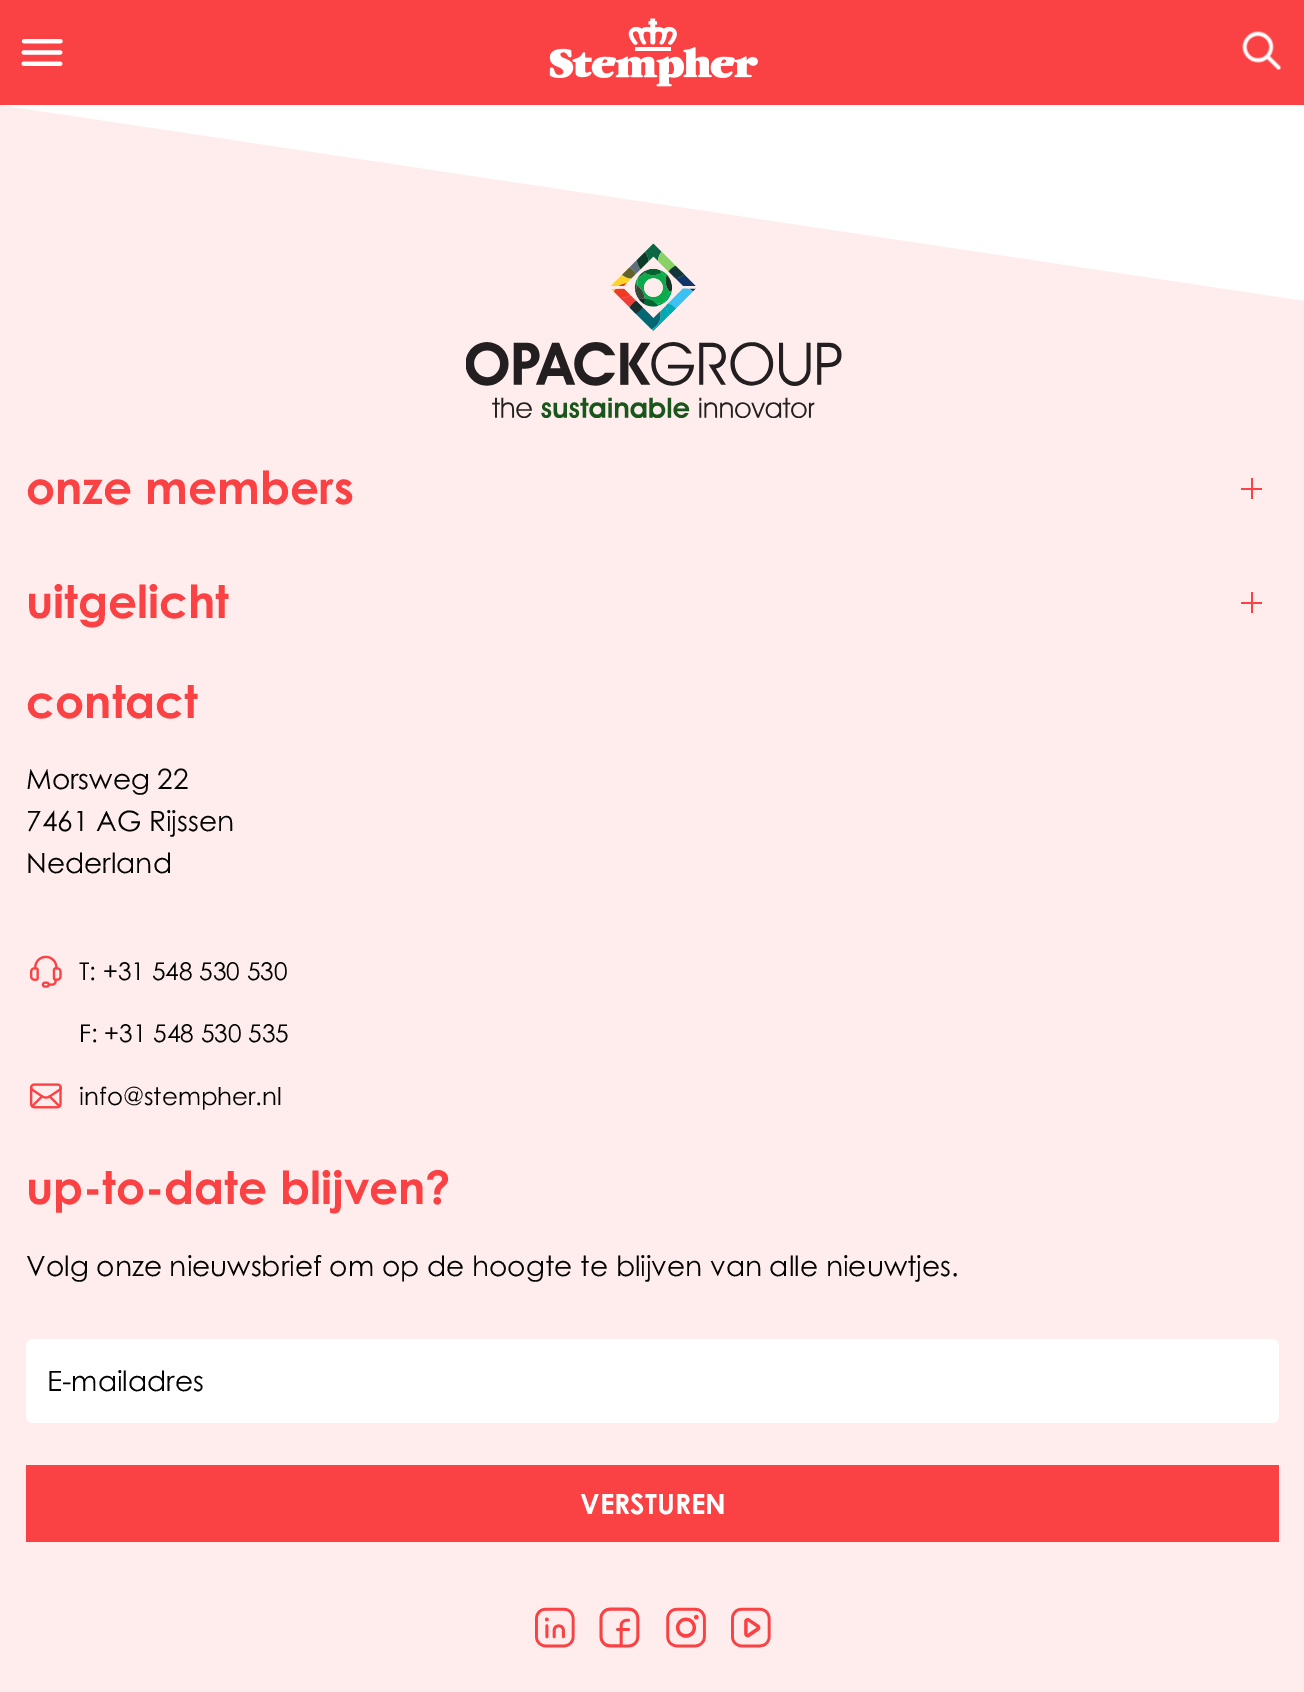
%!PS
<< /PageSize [1304 1692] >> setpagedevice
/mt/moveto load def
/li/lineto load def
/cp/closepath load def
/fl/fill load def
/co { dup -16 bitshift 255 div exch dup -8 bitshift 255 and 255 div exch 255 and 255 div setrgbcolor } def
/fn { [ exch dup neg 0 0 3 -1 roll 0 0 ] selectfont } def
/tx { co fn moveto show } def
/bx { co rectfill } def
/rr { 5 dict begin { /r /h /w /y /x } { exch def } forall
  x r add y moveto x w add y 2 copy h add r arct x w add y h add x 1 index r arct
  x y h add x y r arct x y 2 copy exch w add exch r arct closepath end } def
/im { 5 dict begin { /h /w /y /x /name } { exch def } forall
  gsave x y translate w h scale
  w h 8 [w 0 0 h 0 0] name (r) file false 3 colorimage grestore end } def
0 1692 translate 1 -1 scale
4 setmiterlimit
0 0 1304 1692 16#FFECEC bx
0 0 1304 105 16#FA4244 bx
(media/1.raw) 21 39 42 27 im
(media/2.raw) 549 18 209 69 im
(media/3.raw) 1242 31 39 39 im
16#FFFFFF co
0 105 mt 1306 301 li 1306 105 li cp fl
(media/4.raw) 466 243 376 175 im
1241 488 21 2 16#FA4244 bx
1251 478 2 21 16#FA4244 bx
1241 602 21 2 16#FA4244 bx
1251 592 2 21 16#FA4244 bx
(media/5.raw) 29 955 33 33 im
(media/6.raw) 29 1083 33 26 im
16#FFFFFF co
26 1339 1253 84 7 rr fl
26 1465 1253 77 16#FA4244 bx
(media/7.raw) 535 1607 40 41 im
(media/8.raw) 599 1607 41 41 im
(media/9.raw) 666 1607 40 41 im
(media/10.raw) 731 1607 40 41 im
(onze members) 26 504 /CenturyGothic-Bold 45.5 16#FA4244 tx
(uitgelicht) 26 618 /CenturyGothic-Bold 45.5 16#FA4244 tx
(contact) 26 718 /CenturyGothic-Bold 45.5 16#FA4244 tx
(Morsweg 22) 26 789 /CenturyGothic-Regular 28 16#000000 tx
(7461 AG Rijssen) 26 831 /CenturyGothic-Regular 28 16#000000 tx
(Nederland) 26 873 /CenturyGothic-Regular 28 16#000000 tx
(T: +31 548 530 530) 79 980 /CenturyGothic-Regular 24.5 16#000000 tx
(F: +31 548 530 535) 79 1042 /CenturyGothic-Regular 24.5 16#000000 tx
(info@stempher.nl) 79 1105 /CenturyGothic-Regular 24.5 16#000000 tx
(up-to-date blijven?) 26 1204 /CenturyGothic-Bold 45.5 16#FA4244 tx
(Volg onze nieuwsbrief om op de hoogte te blijven van alle nieuwtjes.) 26 1276 /CenturyGothic-Regular 28 16#000000 tx
(E-mailadres) 47 1391 /CenturyGothic-Regular 28 16#000000 tx
(VERSTUREN) 580 1514 /CenturyGothic-Bold 28 16#FFFFFF tx
showpage
